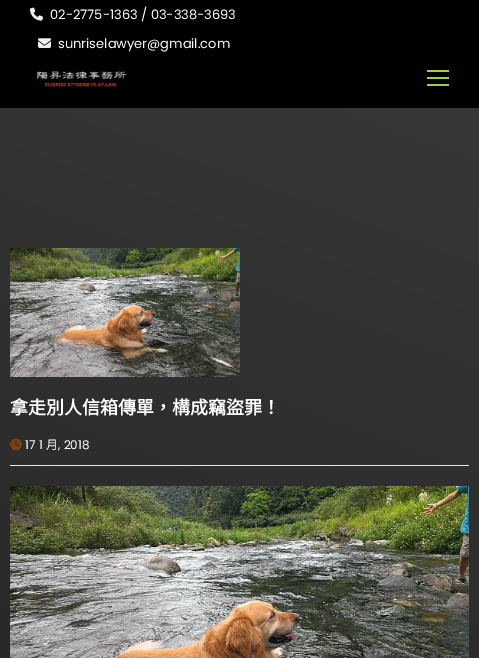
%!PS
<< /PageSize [479 658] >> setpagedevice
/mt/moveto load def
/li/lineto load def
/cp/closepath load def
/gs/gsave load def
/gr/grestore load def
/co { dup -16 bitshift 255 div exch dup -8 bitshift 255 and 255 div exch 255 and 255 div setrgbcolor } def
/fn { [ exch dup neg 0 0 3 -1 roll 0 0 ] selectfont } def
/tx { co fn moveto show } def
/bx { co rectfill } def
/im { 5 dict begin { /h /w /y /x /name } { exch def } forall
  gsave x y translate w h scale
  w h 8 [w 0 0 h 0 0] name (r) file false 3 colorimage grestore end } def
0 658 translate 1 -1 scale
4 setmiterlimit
0 0 479 658 16#FFFFFF bx
gs 0 108 mt 479 108 li 479 658 li 0 658 li cp clip newpath
<< /ShadingType 2 /ColorSpace /DeviceRGB /Coords [-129 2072 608 47] /Extend [true true] /Function << /FunctionType 2 /Domain [0 1] /C0 [.051 .051 .051] /C1 [.224 .224 .224] /N 1 >> >> shfill gr
0 0 479 108 16#000000 bx
(media/1.raw) 30 7 13 14 im
(media/2.raw) 38 38 13 10 im
(media/3.raw) 36 71 91 20 im
427 70 22 2 16#9FCE4E bx
427 77 22 2 16#9FCE4E bx
427 84 22 2 16#9FCE4E bx
(media/4.raw) 10 248 230 129 im
10 465 459 1 16#E6E6E6 bx
(media/5.raw) 10 438 12 13 im
(media/6.raw) 10 486 459 172 im
(02-2775-1363 / 03-338-3693) 50 19 /Poppins-Regular 13 16#FFFFFF tx
(sunriselawyer@gmail.com) 58 48 /Poppins-Regular 13 16#FFFFFF tx
(拿走別人信箱傳單，構成竊盜罪！) 10 414 /NotoSansCJKTC-Bold 18 16#FFFFFF tx
(17 1) 25 449 /Poppins-Regular 12 16#FFFFFF tx
(月) 46 449 /NotoSansCJKTC-Regular 12 16#FFFFFF tx
(, 2018) 58 449 /Poppins-Regular 12 16#FFFFFF tx
showpage
